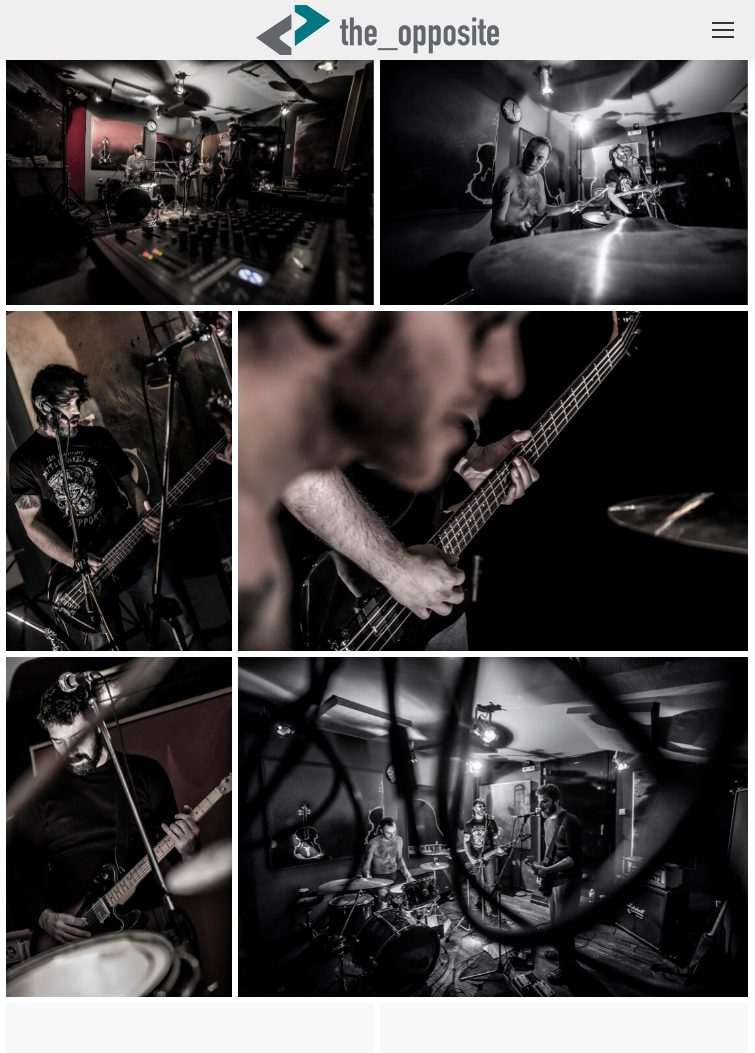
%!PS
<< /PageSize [755 1053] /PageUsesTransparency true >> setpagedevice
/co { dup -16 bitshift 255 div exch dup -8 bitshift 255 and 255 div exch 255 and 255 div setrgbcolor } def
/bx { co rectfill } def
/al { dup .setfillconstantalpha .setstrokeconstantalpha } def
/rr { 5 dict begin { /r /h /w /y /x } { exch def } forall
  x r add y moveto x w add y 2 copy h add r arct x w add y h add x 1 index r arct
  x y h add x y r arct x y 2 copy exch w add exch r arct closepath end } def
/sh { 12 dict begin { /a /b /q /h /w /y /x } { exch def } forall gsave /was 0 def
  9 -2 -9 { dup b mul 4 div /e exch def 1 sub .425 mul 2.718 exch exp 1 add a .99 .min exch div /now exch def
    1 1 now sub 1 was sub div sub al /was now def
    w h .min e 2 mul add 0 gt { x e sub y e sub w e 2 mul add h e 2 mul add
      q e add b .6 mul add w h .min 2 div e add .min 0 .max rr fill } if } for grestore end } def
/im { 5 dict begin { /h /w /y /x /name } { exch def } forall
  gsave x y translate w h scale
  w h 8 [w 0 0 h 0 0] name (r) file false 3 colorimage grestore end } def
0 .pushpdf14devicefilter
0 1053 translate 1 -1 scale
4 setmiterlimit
0 0 755 1053 16#FFFFFF bx
(media/2.raw) 6 60 368 245 im
(media/3.raw) 380 60 368 245 im
16#000000 co
-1 -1 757 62 0 7.5 .07 sh
0 0 755 60 16#EFEFEF bx
(media/1.raw) 256 5 243 50 im
712 22 22 2 16#333333 bx
712 29 22 2 16#333333 bx
712 36 22 2 16#333333 bx
(media/4.raw) 6 311 226 340 im
(media/5.raw) 238 311 510 340 im
(media/6.raw) 6 657 226 340 im
(media/7.raw) 238 657 510 340 im
6 1003 368 50 16#F8F8F8 bx
380 1003 368 50 16#F8F8F8 bx
.poppdf14devicefilter showpage
